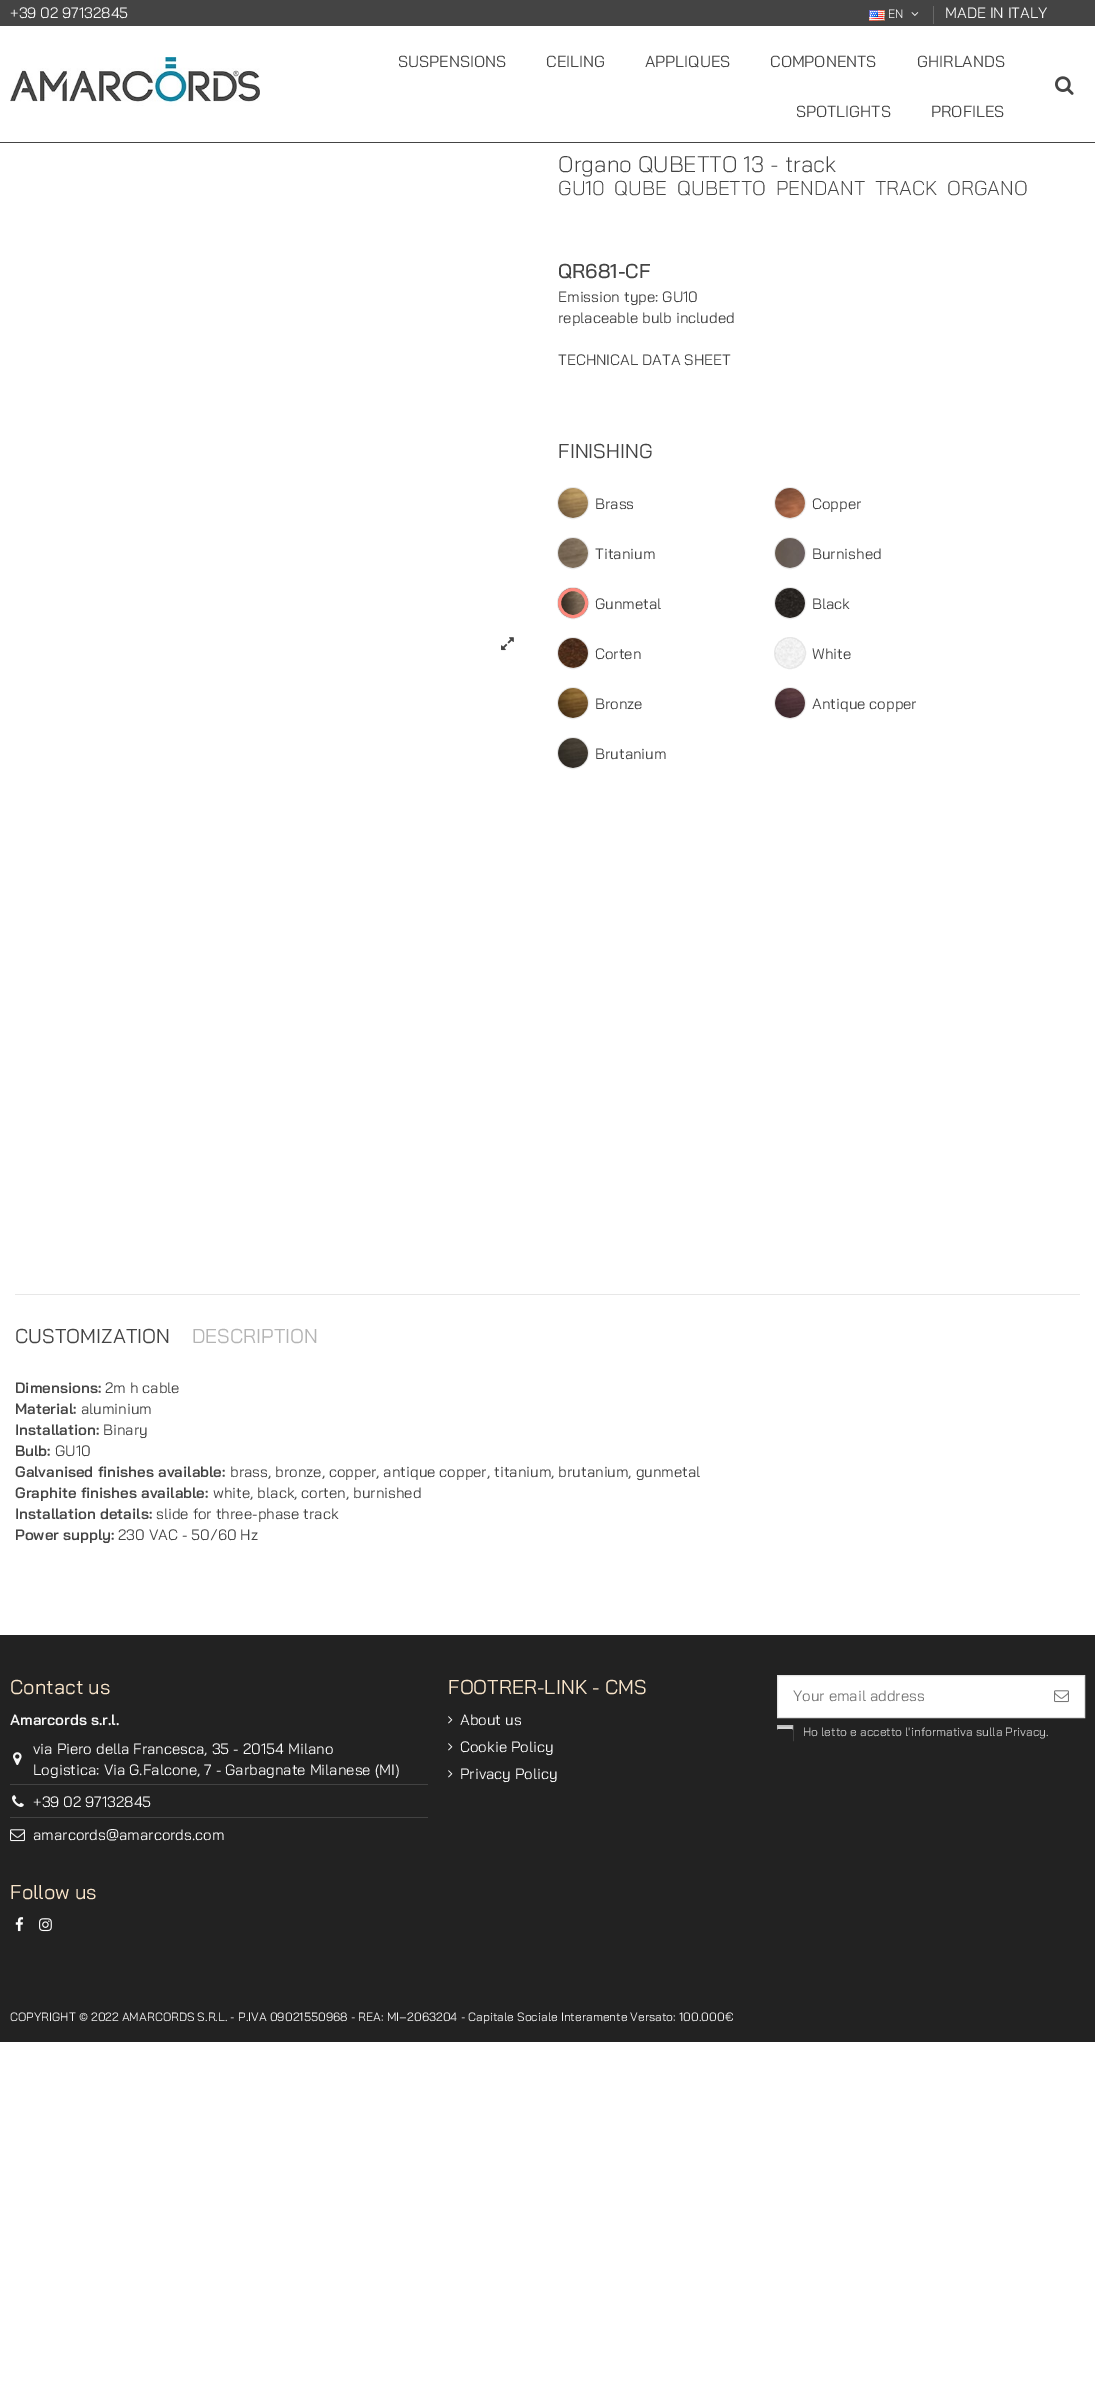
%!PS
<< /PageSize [1095 2386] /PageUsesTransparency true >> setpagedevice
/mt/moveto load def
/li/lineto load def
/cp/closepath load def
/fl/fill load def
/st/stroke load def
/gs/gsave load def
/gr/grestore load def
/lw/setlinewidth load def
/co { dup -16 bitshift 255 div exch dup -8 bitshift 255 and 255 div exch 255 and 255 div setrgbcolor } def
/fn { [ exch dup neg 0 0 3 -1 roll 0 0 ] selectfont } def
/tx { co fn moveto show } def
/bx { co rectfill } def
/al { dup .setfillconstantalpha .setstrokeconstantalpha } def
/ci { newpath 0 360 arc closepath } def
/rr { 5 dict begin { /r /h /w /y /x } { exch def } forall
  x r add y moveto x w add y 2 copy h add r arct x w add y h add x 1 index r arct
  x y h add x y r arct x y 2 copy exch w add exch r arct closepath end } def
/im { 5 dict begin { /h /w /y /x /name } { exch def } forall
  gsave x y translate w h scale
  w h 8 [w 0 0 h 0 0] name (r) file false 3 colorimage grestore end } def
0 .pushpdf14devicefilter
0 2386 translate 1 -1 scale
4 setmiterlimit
0 0 1095 2386 16#FFFFFF bx
0 142 1095 1 16#444444 bx
0 0 1095 26 16#444444 bx
(media/1.raw) 869 10 16 11 im
(media/2.raw) 911 12 8 4 im
933 6 1 18 16#686868 bx
(media/3.raw) 10 57 250 49 im
(media/4.raw) 1055 76 19 19 im
(media/5.raw) 501 637 13 14 im
(media/6.raw) 558 488 30 30 im
0.25 al
16#A0A0A0 co
573 503 15.5 ci st
1 al
(media/7.raw) 775 488 30 30 im
0.25 al
790 503 15.5 ci st
1 al
(media/8.raw) 558 538 30 30 im
0.25 al
573 553 15.5 ci st
1 al
(media/9.raw) 775 538 30 30 im
0.25 al
790 553 15.5 ci st
1 al
(media/10.raw) 558 588 30 30 im
16#FE897D co
3 lw
573 603 13.5 ci st
0.25 al
16#A0A0A0 co
1 lw
573 603 15.5 ci st
1 al
(media/11.raw) 775 588 30 30 im
0.25 al
790 603 15.5 ci st
1 al
(media/12.raw) 558 638 30 30 im
0.25 al
573 653 15.5 ci st
1 al
(media/13.raw) 775 638 30 30 im
0.25 al
790 653 15.5 ci st
1 al
(media/14.raw) 558 688 30 30 im
0.25 al
573 703 15.5 ci st
1 al
(media/15.raw) 775 688 30 30 im
0.25 al
790 703 15.5 ci st
1 al
(media/16.raw) 558 738 30 30 im
0.25 al
573 753 15.5 ci st
1 al
15 1294 1065 1 16#E7E7E7 bx
0 1635 1095 407 16#222222 bx
(media/17.raw) 13 1752 9 13 im
10 1784 418 1 16#424242 bx
(media/18.raw) 12 1795 12 12 im
10 1817 418 1 16#424242 bx
(media/19.raw) 10 1829 15 13 im
(media/20.raw) 448 1716 5 8 im
(media/20.raw) 448 1743 5 8 im
(media/20.raw) 448 1770 5 8 im
16#FFFFFF co
777.5 1675.5 mt 1084.5 1675.5 li 1084.5 1717.5 li 777.5 1717.5 li cp gs fl gr
16#E3E3E3 co
st
(media/21.raw) 1054 1690 15 13 im
778 1727 14 3 16#D3D3D3 bx
778 1726 14 1 16#C1C1C1 bx
16#BCBCBC co
777.5 1725.5 15 15 rectstroke
16#222222 co
777.5 1729.5 15 15 1.5 rr gs fl gr
st
(media/22.raw) 15 1917 9 15 im
(media/23.raw) 39 1918 13 14 im
(+39 02 97132845) 10 18 /BaiJamjuree-Regular 15 16#F8F8F8 tx
(EN) 888 18 /BaiJamjuree-Regular 12 16#F8F8F8 tx
(MADE IN ITALY) 945 18 /BaiJamjuree-Regular 15 16#F8F8F8 tx
(SUSPENSIONS) 398 67 /BaiJamjuree-Regular 16 16#444444 tx
(CEILING) 546 67 /BaiJamjuree-Regular 16 16#444444 tx
(APPLIQUES) 645 67 /BaiJamjuree-Regular 16 16#444444 tx
(COMPONENTS) 770 67 /BaiJamjuree-Regular 16 16#444444 tx
(GHIRLANDS) 917 67 /BaiJamjuree-Regular 16 16#444444 tx
(SPOTLIGHTS) 796 117 /BaiJamjuree-Regular 16 16#444444 tx
(PROFILES) 931 117 /BaiJamjuree-Regular 16 16#444444 tx
(Organo QUBETTO 13 - track) 558 172 /BaiJamjuree-Light 22.5 16#444444 tx
(GU10) 558 195 /BaiJamjuree-Light 20 16#444444 tx
(QUBE) 614 195 /BaiJamjuree-Light 20 16#444444 tx
(QUBETTO) 677 195 /BaiJamjuree-Light 20 16#444444 tx
(PENDANT) 776 195 /BaiJamjuree-Light 20 16#444444 tx
(TRACK) 875 195 /BaiJamjuree-Light 20 16#444444 tx
(ORGANO) 947 195 /BaiJamjuree-Light 20 16#444444 tx
(QR681-CF) 558 278 /BaiJamjuree-Medium 20 16#444444 tx
(Emission type: GU10) 558 302 /BaiJamjuree-Regular 15 16#444444 tx
(replaceable bulb included) 558 323 /BaiJamjuree-Regular 15 16#444444 tx
(TECHNICAL DATA SHEET) 558 365 /BaiJamjuree-Regular 15 16#444444 tx
(FINISHING) 558 458 /BaiJamjuree-Regular 20 16#444444 tx
(Brass) 595 509 /BaiJamjuree-Regular 15 16#444444 tx
(Copper) 812 509 /BaiJamjuree-Regular 15 16#444444 tx
(Titanium) 595 559 /BaiJamjuree-Regular 15 16#444444 tx
(Burnished) 812 559 /BaiJamjuree-Regular 15 16#444444 tx
(Gunmetal) 595 609 /BaiJamjuree-Regular 15 16#444444 tx
(Black) 812 609 /BaiJamjuree-Regular 15 16#444444 tx
(Corten) 595 659 /BaiJamjuree-Regular 15 16#444444 tx
(White) 812 659 /BaiJamjuree-Regular 15 16#444444 tx
(Bronze) 595 709 /BaiJamjuree-Regular 15 16#444444 tx
(Antique copper) 812 709 /BaiJamjuree-Regular 15 16#444444 tx
(Brutanium) 595 759 /BaiJamjuree-Regular 15 16#444444 tx
(CUSTOMIZATION) 15 1343 /BaiJamjuree-Regular 20 16#444444 tx
(DESCRIPTION) 192 1343 /BaiJamjuree-Regular 20 16#B4B4B4 tx
(Dimensions:) 15 1393 /BaiJamjuree-SemiBold 15 16#444444 tx
(2m h cable) 105 1393 /BaiJamjuree-Regular 15 16#444444 tx
(Material:) 15 1414 /BaiJamjuree-SemiBold 15 16#444444 tx
(aluminium) 81 1414 /BaiJamjuree-Regular 15 16#444444 tx
(Installation:) 15 1435 /BaiJamjuree-SemiBold 15 16#444444 tx
(Binary) 103 1435 /BaiJamjuree-Regular 15 16#444444 tx
(Bulb:) 15 1456 /BaiJamjuree-SemiBold 15 16#444444 tx
(GU10) 55 1456 /BaiJamjuree-Regular 15 16#444444 tx
(Galvanised finishes available:) 15 1477 /BaiJamjuree-SemiBold 15 16#444444 tx
(brass, bronze, copper, antique copper, titanium, brutanium, gunmetal) 230 1477 /BaiJamjuree-Regular 15 16#444444 tx
(Graphite finishes available:) 15 1498 /BaiJamjuree-SemiBold 15 16#444444 tx
(white, black, corten, burnished) 213 1498 /BaiJamjuree-Regular 15 16#444444 tx
(Installation details:) 15 1519 /BaiJamjuree-SemiBold 15 16#444444 tx
(slide for three-phase track) 156 1519 /BaiJamjuree-Regular 15 16#444444 tx
(Power supply:) 15 1540 /BaiJamjuree-SemiBold 15 16#444444 tx
(230 VAC - 50/60 Hz) 118 1540 /BaiJamjuree-Regular 15 16#444444 tx
(Contact us) 10 1694 /BaiJamjuree-Regular 20 16#F9E5CA tx
(Amarcords s.r.l.) 10 1725 /BaiJamjuree-SemiBold 15 16#F8F8F8 tx
(via Piero della Francesca, 35 - 20154 Milano) 33 1754 /BaiJamjuree-Regular 15 16#F8F8F8 tx
(Logistica: Via G.Falcone, 7 - Garbagnate Milanese \(MI\)) 33 1775 /BaiJamjuree-Regular 15 16#F8F8F8 tx
(+39 02 97132845) 33 1807 /BaiJamjuree-Regular 15 16#F8F8F8 tx
(amarcords@amarcords.com) 33 1840 /BaiJamjuree-Regular 15 16#F8F8F8 tx
(FOOTRER-LINK - CMS) 448 1694 /BaiJamjuree-Regular 20 16#F9E5CA tx
(About us) 460 1725 /BaiJamjuree-Regular 15 16#F8F8F8 tx
(Cookie Policy) 460 1752 /BaiJamjuree-Regular 15 16#F8F8F8 tx
(Privacy Policy) 460 1779 /BaiJamjuree-Regular 15 16#F8F8F8 tx
(Your email address) 793 1701 /BaiJamjuree-Regular 15 16#777777 tx
(Ho letto e accetto l'informativa sulla Privacy.) 803 1736 /BaiJamjuree-Regular 12 16#CDCDCD tx
(Follow us) 10 1899 /BaiJamjuree-Regular 20 16#F9E5CA tx
(COPYRIGHT © 2022 AMARCORDS S.R.L. - P.IVA 09021550968 - REA: MI–2063204 - Capitale Sociale Interamente Versato: 100.000€) 10 2021 /BaiJamjuree-Regular 12 16#F8F8F8 tx
.poppdf14devicefilter showpage
